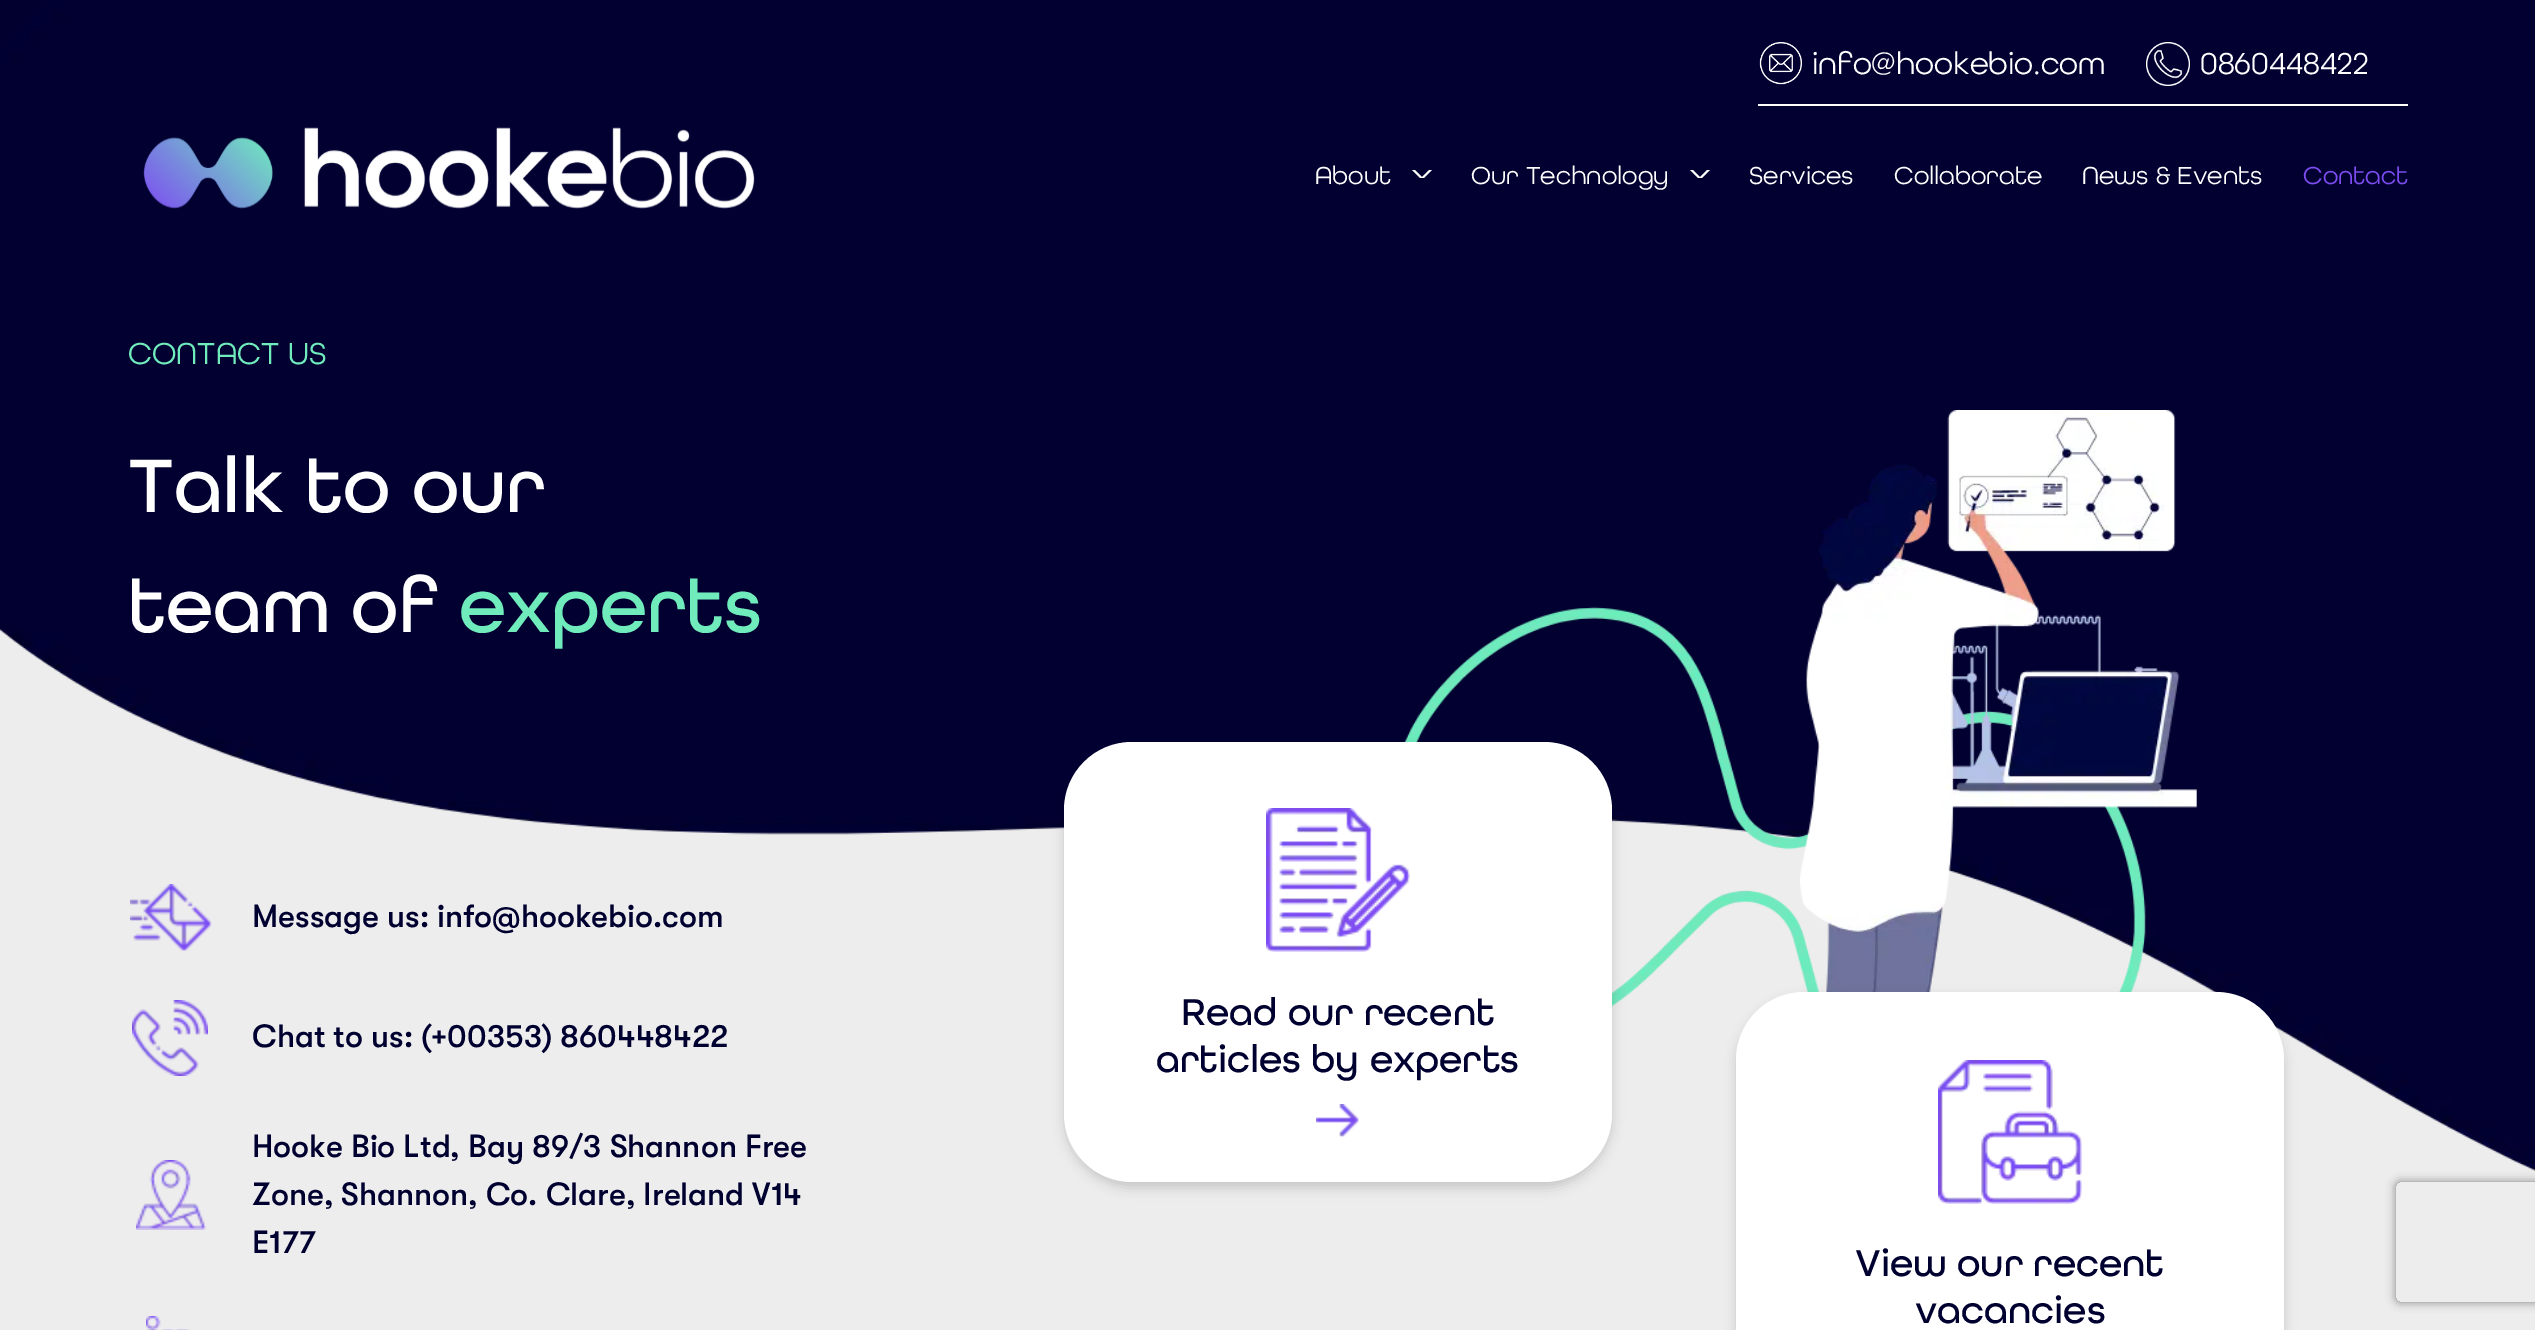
%!PS
<< /PageSize [2535 1330] /PageUsesTransparency true >> setpagedevice
/mt/moveto load def
/li/lineto load def
/ct/curveto load def
/cp/closepath load def
/fl/fill load def
/st/stroke load def
/gs/gsave load def
/gr/grestore load def
/lw/setlinewidth load def
/co { dup -16 bitshift 255 div exch dup -8 bitshift 255 and 255 div exch 255 and 255 div setrgbcolor } def
/fn { [ exch dup neg 0 0 3 -1 roll 0 0 ] selectfont } def
/tx { co fn moveto show } def
/bx { co rectfill } def
/al { dup .setfillconstantalpha .setstrokeconstantalpha } def
/rr { 5 dict begin { /r /h /w /y /x } { exch def } forall
  x r add y moveto x w add y 2 copy h add r arct x w add y h add x 1 index r arct
  x y h add x y r arct x y 2 copy exch w add exch r arct closepath end } def
/sh { 12 dict begin { /a /b /q /h /w /y /x } { exch def } forall gsave /was 0 def
  9 -2 -9 { dup b mul 4 div /e exch def 1 sub .425 mul 2.718 exch exp 1 add a .99 .min exch div /now exch def
    1 1 now sub 1 was sub div sub al /was now def
    w h .min e 2 mul add 0 gt { x e sub y e sub w e 2 mul add h e 2 mul add
      q e add b .6 mul add w h .min 2 div e add .min 0 .max rr fill } if } for grestore end } def
/im { 5 dict begin { /h /w /y /x /name } { exch def } forall
  gsave x y translate w h scale
  w h 8 [w 0 0 h 0 0] name (r) file false 3 colorimage grestore end } def
0 .pushpdf14devicefilter
0 1330 translate 1 -1 scale
4 setmiterlimit
0 0 2535 1330 16#EDEDED bx
(media/4.raw) 0 0 2535 1171 im
1758 104 650 2 16#FFFFFF bx
(media/1.raw) 1759 42 43 43 im
(media/2.raw) 2146 42 44 44 im
(media/3.raw) 143 127 612 82 im
gs
1412 170 20 8 rectclip
1.9 lw
1412.5 169 mt 1422 178.5 li 1431.5 169 li st
gr
gs
1690 170 20 8 rectclip
1.9 lw
1690.5 169 mt 1700 178.5 li 1709.5 169 li st
gr
(media/5.raw) 130 884 82 67 im
(media/6.raw) 132 1000 76 76 im
(media/7.raw) 136 1160 70 70 im
(media/8.raw) 146 1316 44 14 im
(media/10.raw) 1404 606 742 401 im
(media/9.raw) 1800 410 397 582 im
16#000000 co
1064 748 548 440 68 6 .16 sh
16#FFFFFF co
1064 742 548 440 68 rr fl
(media/11.raw) 1266 808 144 144 im
(media/12.raw) 1316 1104 43 33 im
16#000000 co
1736 998 548 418 68 6 .16 sh
16#FFFFFF co
1736 992 548 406 68 rr fl
(media/13.raw) 1938 1060 144 144 im
gs
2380 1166 mt 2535 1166 li 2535 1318 li 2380 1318 li cp 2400 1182 mt 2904 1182 li 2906 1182 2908 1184 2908 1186 ct 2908 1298 li 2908 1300 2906 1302 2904 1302 ct 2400 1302 li 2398 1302 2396 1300 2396 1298 ct 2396 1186 li 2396 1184 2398 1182 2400 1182 ct cp eoclip newpath
16#808080 co
2396 1182 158 120 4 5 1 sh
gr
(info@hookebio.com) 1812 74 /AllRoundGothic-Regular 32 16#FFFFFF tx
(0860448422) 2200 74 /AllRoundGothic-Regular 32 16#FFFFFF tx
(About) 1315 184 /AllRoundGothic-Regular 26 16#FFFFFF tx
(Our Technology) 1471 184 /AllRoundGothic-Regular 26 16#FFFFFF tx
(Services) 1749 184 /AllRoundGothic-Regular 26 16#FFFFFF tx
(Collaborate) 1894 184 /AllRoundGothic-Regular 26 16#FFFFFF tx
(News & Events) 2082 184 /AllRoundGothic-Regular 26 16#FFFFFF tx
(Contact) 2303 184 /AllRoundGothic-Regular 26 16#7D4CF1 tx
(CONTACT US) 128 364 /AllRoundGothic-Regular 32 16#6FEBBC tx
(Talk to our) 128 512 /AllRoundGothic-Medium 80 16#FFFFFF tx
(team of) 128 632 /AllRoundGothic-Medium 80 16#FFFFFF tx
(experts) 459 632 /AllRoundGothic-Medium 80 16#6FEBBC tx
(Message us: info@hookebio.com) 252 927 /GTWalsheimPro-Medium 32 16#000030 tx
(Chat to us: \(+00353\) 860448422) 252 1047 /GTWalsheimPro-Medium 32 16#000030 tx
(Hooke Bio Ltd, Bay 89/3 Shannon Free) 252 1157 /GTWalsheimPro-Medium 32 16#000030 tx
(Zone, Shannon, Co. Clare, Ireland V14) 252 1205 /GTWalsheimPro-Medium 32 16#000030 tx
(E177) 252 1253 /GTWalsheimPro-Medium 32 16#000030 tx
(Read our recent) 1181 1025 /AllRoundGothic-Medium 39.5 16#000030 tx
(articles by experts) 1156 1072 /AllRoundGothic-Medium 39.5 16#000030 tx
(View our recent) 1855 1276 /AllRoundGothic-Medium 39.5 16#000030 tx
(vacancies) 1915 1323 /AllRoundGothic-Medium 39.5 16#000030 tx
.poppdf14devicefilter showpage
